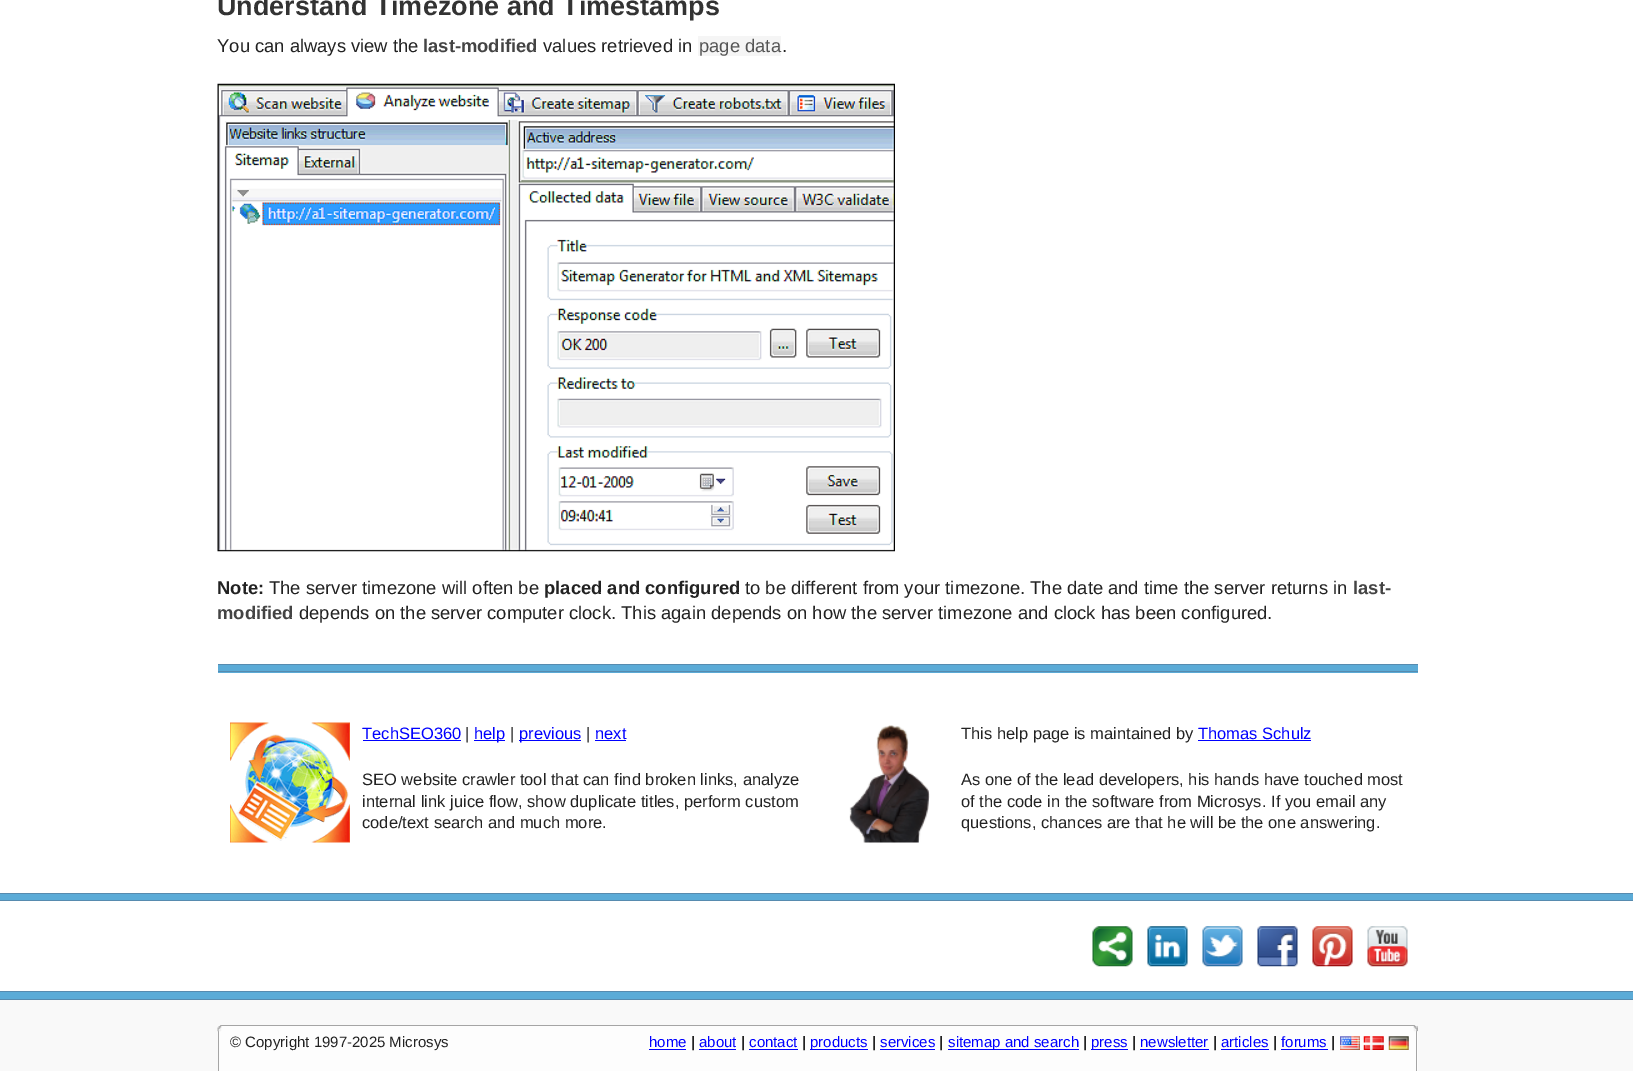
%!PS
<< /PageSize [1633 1071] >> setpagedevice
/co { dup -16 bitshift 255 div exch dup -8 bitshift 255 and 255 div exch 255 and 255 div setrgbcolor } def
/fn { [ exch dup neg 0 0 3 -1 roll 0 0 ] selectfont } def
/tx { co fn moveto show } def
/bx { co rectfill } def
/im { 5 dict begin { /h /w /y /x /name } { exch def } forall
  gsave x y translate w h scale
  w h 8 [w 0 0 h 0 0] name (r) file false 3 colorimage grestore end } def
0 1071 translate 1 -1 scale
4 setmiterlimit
0 0 1633 1071 16#FFFFFF bx
698 36 83 20 16#F5F5F5 bx
(media/1.raw) 217 83 678 469 im
218 665 1200 8 16#5BABD7 bx
218 664 1200 1 16#578BAF bx
218 671 1200 1 16#578BAF bx
(media/2.raw) 230 722 120 121 im
363 740 98 1 16#0000FF bx
474 740 31 1 16#0000FF bx
519 740 62 1 16#0000FF bx
595 740 31 1 16#0000FF bx
(media/3.raw) 849 725 81 118 im
1198 740 113 1 16#0000FF bx
0 894 1633 6 16#5BABD7 bx
0 893 1633 1 16#578BAF bx
0 900 1633 1 16#578BAF bx
(media/4.raw) 1092 926 41 41 im
(media/5.raw) 1147 926 41 41 im
(media/6.raw) 1202 926 41 41 im
(media/7.raw) 1257 926 41 41 im
(media/8.raw) 1312 926 41 41 im
(media/9.raw) 1367 926 41 41 im
0 992 1633 7 16#5BABD7 bx
0 991 1633 1 16#578BAF bx
0 999 1633 1 16#578BAF bx
0 1000 1633 71 16#F9F9F9 bx
218 1026 1200 45 16#FDFDFD bx
221 1025 1193 1 16#A5A5A5 bx
(media/10.raw) 218 1025 4 2 im
1414 1025 4 1 16#F2F2F2 bx
1414 1026 4 5 16#A5A5A5 bx
(media/11.raw) 1413 1025 5 2 im
218 1031 1 40 16#A5A5A5 bx
(media/12.raw) 217 1026 5 6 im
1416 1031 1 40 16#A5A5A5 bx
(media/13.raw) 1413 1026 5 6 im
649 1049 37 1 16#0000FF bx
699 1049 37 1 16#0000FF bx
749 1049 49 1 16#0000FF bx
810 1049 58 1 16#0000FF bx
880 1049 55 1 16#0000FF bx
948 1049 131 1 16#0000FF bx
1091 1049 37 1 16#0000FF bx
1140 1049 69 1 16#0000FF bx
1221 1049 48 1 16#0000FF bx
1281 1049 47 1 16#0000FF bx
(media/14.raw) 1340 1036 20 14 im
(media/15.raw) 1363 1036 21 14 im
(media/16.raw) 1388 1036 21 14 im
(Understand Timezone and Timestamps) 217 15 /LiberationSans-Bold 27 16#333333 tx
(You can always view the) 217 52 /LiberationSans-Regular 18.4 16#222222 tx
(last-modified) 423 52 /LiberationSans-Bold 18.4 16#444444 tx
(values retrieved in) 543 52 /LiberationSans-Regular 18.4 16#222222 tx
(page data) 699 52 /LiberationSans-Regular 18.4 16#555555 tx
(.) 782 52 /LiberationSans-Regular 18.4 16#222222 tx
(Note:) 217 594 /LiberationSans-Bold 18.4 16#222222 tx
(The server timezone will often be) 269 594 /LiberationSans-Regular 18.4 16#222222 tx
(placed and configured) 544 594 /LiberationSans-Bold 18.4 16#222222 tx
(to be different from your timezone. The date and time the server returns in) 745 594 /LiberationSans-Regular 18.4 16#222222 tx
(last-) 1353 594 /LiberationSans-Bold 18.4 16#444444 tx
(modified) 217 619 /LiberationSans-Bold 18.4 16#444444 tx
(depends on the server computer clock. This again depends on how the server timezone and clock has been configured.) 299 619 /LiberationSans-Regular 18.4 16#222222 tx
(TechSEO360) 362 739 /LiberationSans-Regular 16.5 16#0000FF tx
(|) 465 739 /LiberationSans-Regular 16.5 16#222222 tx
(help) 474 739 /LiberationSans-Regular 16.5 16#0000FF tx
(|) 510 739 /LiberationSans-Regular 16.5 16#222222 tx
(previous) 519 739 /LiberationSans-Regular 16.5 16#0000FF tx
(|) 586 739 /LiberationSans-Regular 16.5 16#222222 tx
(next) 595 739 /LiberationSans-Regular 16.5 16#0000FF tx
(SEO website crawler tool that can find broken links, analyze) 362 785 /LiberationSans-Regular 16.5 16#222222 tx
(internal link juice flow, show duplicate titles, perform custom) 362 807 /LiberationSans-Regular 16.5 16#222222 tx
(code/text search and much more.) 362 828 /LiberationSans-Regular 16.5 16#222222 tx
(This help page is maintained by) 961 739 /LiberationSans-Regular 16.5 16#222222 tx
(Thomas Schulz) 1198 739 /LiberationSans-Regular 16.5 16#0000FF tx
(As one of the lead developers, his hands have touched most) 961 785 /LiberationSans-Regular 16.5 16#222222 tx
(of the code in the software from Microsys.) 961 807 /LiberationSans-Regular 16.5 16#222222 tx
(If you email any) 1271 807 /LiberationSans-Regular 16.5 16#222222 tx
(questions, chances are that he will be the one answering.) 961 828 /LiberationSans-Regular 16.5 16#222222 tx
(© Copyright 1997-2025 Microsys) 230 1047 /LiberationSans-Regular 15 16#222222 tx
(home) 649 1047 /LiberationSans-Regular 15 16#0000FF tx
(|) 691 1047 /LiberationSans-Bold 15 16#222222 tx
(about) 699 1047 /LiberationSans-Regular 15 16#0000FF tx
(|) 741 1047 /LiberationSans-Bold 15 16#222222 tx
(contact) 749 1047 /LiberationSans-Regular 15 16#0000FF tx
(|) 802 1047 /LiberationSans-Bold 15 16#222222 tx
(products) 810 1047 /LiberationSans-Regular 15 16#0000FF tx
(|) 872 1047 /LiberationSans-Bold 15 16#222222 tx
(services) 880 1047 /LiberationSans-Regular 15 16#0000FF tx
(|) 939 1047 /LiberationSans-Bold 15 16#222222 tx
(sitemap and search) 948 1047 /LiberationSans-Regular 15 16#0000FF tx
(|) 1083 1047 /LiberationSans-Bold 15 16#222222 tx
(press) 1091 1047 /LiberationSans-Regular 15 16#0000FF tx
(|) 1132 1047 /LiberationSans-Bold 15 16#222222 tx
(newsletter) 1140 1047 /LiberationSans-Regular 15 16#0000FF tx
(|) 1213 1047 /LiberationSans-Bold 15 16#222222 tx
(articles) 1221 1047 /LiberationSans-Regular 15 16#0000FF tx
(|) 1273 1047 /LiberationSans-Bold 15 16#222222 tx
(forums) 1281 1047 /LiberationSans-Regular 15 16#0000FF tx
(|) 1331 1047 /LiberationSans-Bold 15 16#222222 tx
showpage
